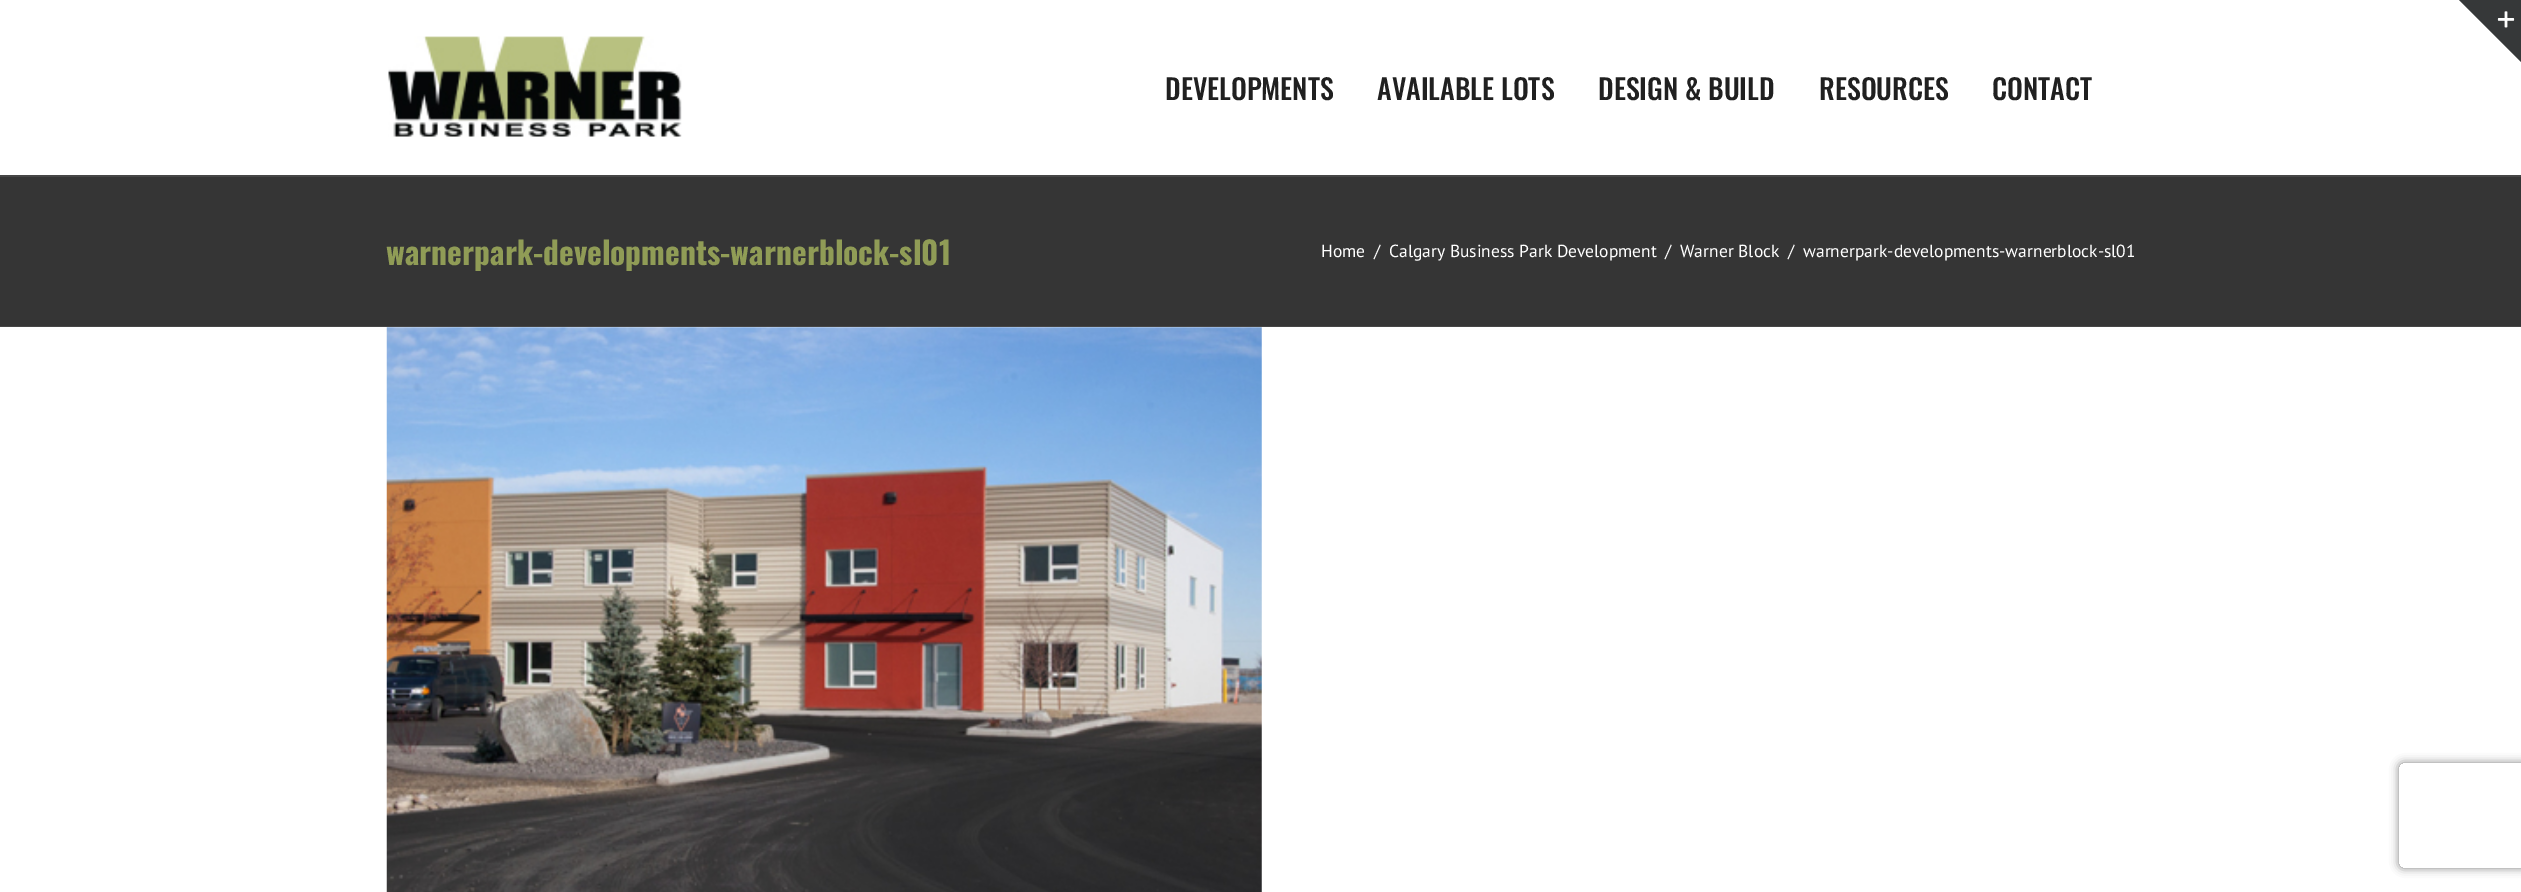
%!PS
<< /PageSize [2521 892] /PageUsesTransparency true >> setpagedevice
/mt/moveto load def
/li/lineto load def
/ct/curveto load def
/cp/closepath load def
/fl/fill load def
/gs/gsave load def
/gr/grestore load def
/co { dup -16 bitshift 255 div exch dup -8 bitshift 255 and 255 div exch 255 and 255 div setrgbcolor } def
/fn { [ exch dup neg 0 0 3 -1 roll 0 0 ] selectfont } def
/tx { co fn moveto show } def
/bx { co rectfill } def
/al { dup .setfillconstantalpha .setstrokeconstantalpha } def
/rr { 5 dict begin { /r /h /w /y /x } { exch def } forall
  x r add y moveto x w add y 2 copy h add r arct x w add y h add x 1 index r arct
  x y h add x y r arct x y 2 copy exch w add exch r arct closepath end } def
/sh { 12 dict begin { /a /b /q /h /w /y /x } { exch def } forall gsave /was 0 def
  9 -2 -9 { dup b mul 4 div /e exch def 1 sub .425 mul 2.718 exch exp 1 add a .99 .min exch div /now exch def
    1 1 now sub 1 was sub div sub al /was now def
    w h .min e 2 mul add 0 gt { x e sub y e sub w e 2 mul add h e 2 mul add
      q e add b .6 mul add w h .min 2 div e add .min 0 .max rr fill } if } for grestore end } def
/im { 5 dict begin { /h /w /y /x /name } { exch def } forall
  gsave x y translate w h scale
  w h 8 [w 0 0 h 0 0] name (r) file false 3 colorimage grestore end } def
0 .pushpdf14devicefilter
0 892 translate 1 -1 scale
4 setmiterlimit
0 0 2521 892 16#FFFFFF bx
16#363839 co
2459 0 mt 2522 0 li 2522 63 li cp fl
(media/1.raw) 2497 11 18 17 im
(media/2.raw) 388 36 294 101 im
0 177 2521 149 16#353535 bx
0 175 2521 2 16#464646 bx
0 326 2521 1 16#464646 bx
(media/3.raw) 386 327 876 565 im
gs
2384 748 mt 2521 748 li 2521 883 li 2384 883 li cp 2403 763 mt 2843 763 li 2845 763 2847 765 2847 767 ct 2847 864 li 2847 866 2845 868 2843 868 ct 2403 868 li 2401 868 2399 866 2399 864 ct 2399 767 li 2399 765 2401 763 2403 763 ct cp eoclip newpath
16#808080 co
2399 763 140 105 4 4.5 1 sh
gr
(DEVELOPMENTS) 1165 100 /Oswald-Medium 28 16#202020 tx
(AVAILABLE LOTS) 1377 100 /Oswald-Medium 28 16#202020 tx
(DESIGN & BUILD) 1598 100 /Oswald-Medium 28 16#202020 tx
(RESOURCES) 1819 100 /Oswald-Medium 28 16#202020 tx
(CONTACT) 1992 100 /Oswald-Medium 28 16#202020 tx
(warnerpark-developments-warnerblock-sl01) 386 265 /Oswald-Bold 31.5 16#909C56 tx
(Home) 1321 257 /PTSans-Regular 17.5 16#FFFFFF tx
(/) 1374 257 /PTSans-Regular 17.5 16#FFFFFF tx
(Calgary Business Park Development) 1389 257 /PTSans-Regular 17.5 16#FFFFFF tx
(/) 1665 257 /PTSans-Regular 17.5 16#FFFFFF tx
(Warner Block) 1680 257 /PTSans-Regular 17.5 16#FFFFFF tx
(/) 1788 257 /PTSans-Regular 17.5 16#FFFFFF tx
(warnerpark-developments-warnerblock-sl01) 1803 257 /PTSans-Regular 17.5 16#FFFFFF tx
.poppdf14devicefilter showpage
